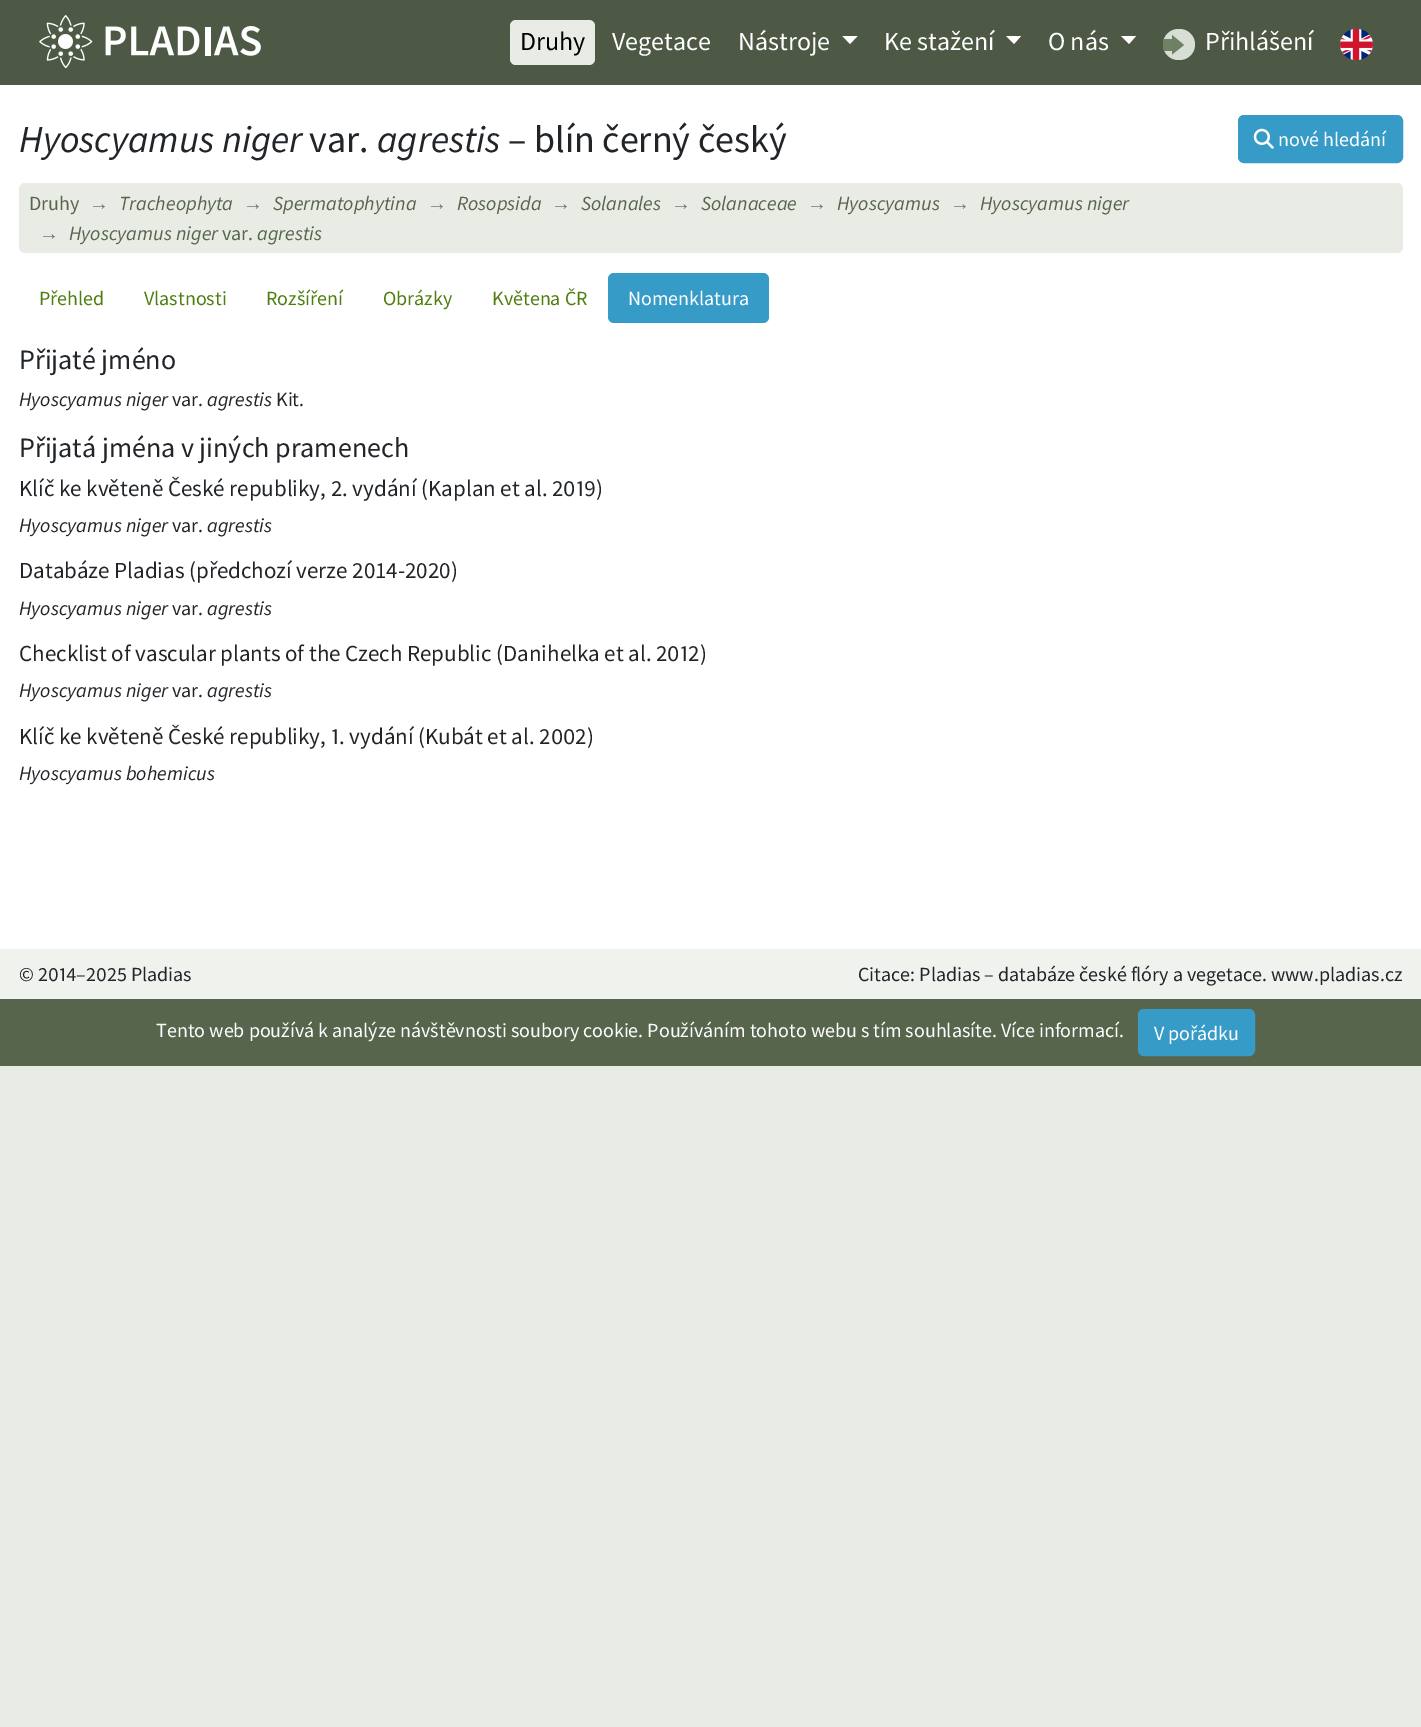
%!PS
<< /PageSize [1421 1727] /PageUsesTransparency true >> setpagedevice
/mt/moveto load def
/li/lineto load def
/cp/closepath load def
/fl/fill load def
/st/stroke load def
/gs/gsave load def
/gr/grestore load def
/co { dup -16 bitshift 255 div exch dup -8 bitshift 255 and 255 div exch 255 and 255 div setrgbcolor } def
/fn { [ exch dup neg 0 0 3 -1 roll 0 0 ] selectfont } def
/tx { co fn moveto show } def
/bx { co rectfill } def
/al { dup .setfillconstantalpha .setstrokeconstantalpha } def
/rr { 5 dict begin { /r /h /w /y /x } { exch def } forall
  x r add y moveto x w add y 2 copy h add r arct x w add y h add x 1 index r arct
  x y h add x y r arct x y 2 copy exch w add exch r arct closepath end } def
/im { 5 dict begin { /h /w /y /x /name } { exch def } forall
  gsave x y translate w h scale
  w h 8 [w 0 0 h 0 0] name (r) file false 3 colorimage grestore end } def
0 .pushpdf14devicefilter
0 1727 translate 1 -1 scale
4 setmiterlimit
0 0 1421 1727 16#E8ECE5 bx
0 0 1421 85 16#4D5944 bx
(media/1.raw) 39 15 222 54 im
16#E8ECE5 co
510 20 85 45 6 rr fl
16#FFFFFF co
842.5 36 mt 857.5 36 li 850 44 li cp fl
1006 36 mt 1021 36 li 1014 44 li cp fl
1121 36 mt 1136 36 li 1129 44 li cp fl
16#D8DED4 co
1163 29 32 31 15.5 rr fl
16#6E8062 co
1184 45 mt 1172 54.5 li 1172 35 li cp eofill
gs
1163 29 32 31 15.5 rr clip newpath
0.98 al
1163 39 13 12 16#6E8062 bx
gr
(media/2.raw) 1340 29 33 31 im
0 85 1421 864 16#FFFFFF bx
16#379BC8 co
1238.5 115.5 164 47 5.5 rr gs fl gr
st
(media/3.raw) 1253 128 21 21 im
16#E8ECE5 co
19 183 1384 70 6 rr fl
16#379BC8 co
608 273 161 50 6 rr fl
0 949 1421 50 16#F0F2EE bx
0 999 1421 67 16#57654D bx
16#379BC8 co
1138.5 1009.5 116 46 5.5 rr gs fl gr
st
(Druhy) 520 50 /SourceSansPro-Regular 26 16#000000 tx
(Vegetace) 612 50 /SourceSansPro-Regular 26 16#FFFFFF tx
(Nástroje) 738 50 /SourceSansPro-Regular 26 16#FFFFFF tx
(Ke stažení) 884 50 /SourceSansPro-Regular 26 16#FFFFFF tx
(O nás) 1048 50 /SourceSansPro-Regular 26 16#FFFFFF tx
(Přihlášení) 1205 50 /SourceSansPro-Regular 26 16#FFFFFF tx
(Hyoscyamus niger) 19 152 /SourceSansPro-Italic 38 16#212529 tx
(var.) 309 152 /SourceSansPro-Regular 38 16#212529 tx
(agrestis) 377 152 /SourceSansPro-Italic 38 16#212529 tx
(– blín černý český) 508 152 /SourceSansPro-Regular 38 16#212529 tx
(nové hledání) 1278 146 /SourceSansPro-Regular 20 16#FFFFFF tx
(Druhy) 29 210 /SourceSansPro-Regular 20 16#57654D tx
(→) 89 210 /LiberationSerif-Regular 20 16#6C757D tx
(Tracheophyta) 119 210 /SourceSansPro-Italic 20 16#57654D tx
(→) 243 210 /LiberationSerif-Regular 20 16#6C757D tx
(Spermatophytina) 273 210 /SourceSansPro-Italic 20 16#57654D tx
(→) 427 210 /LiberationSerif-Regular 20 16#6C757D tx
(Rosopsida) 457 210 /SourceSansPro-Italic 20 16#57654D tx
(→) 551 210 /LiberationSerif-Regular 20 16#6C757D tx
(Solanales) 581 210 /SourceSansPro-Italic 20 16#57654D tx
(→) 671 210 /LiberationSerif-Regular 20 16#6C757D tx
(Solanaceae) 701 210 /SourceSansPro-Italic 20 16#57654D tx
(→) 807 210 /LiberationSerif-Regular 20 16#6C757D tx
(Hyoscyamus) 837 210 /SourceSansPro-Italic 20 16#57654D tx
(→) 950 210 /LiberationSerif-Regular 20 16#6C757D tx
(Hyoscyamus niger) 980 210 /SourceSansPro-Italic 20 16#57654D tx
(→) 39 240 /LiberationSerif-Regular 20 16#6C757D tx
(Hyoscyamus niger) 69 240 /SourceSansPro-Italic 20 16#57654D tx
(var.) 222 240 /SourceSansPro-Regular 20 16#57654D tx
(agrestis) 257 240 /SourceSansPro-Italic 20 16#57654D tx
(Přehled) 39 305 /SourceSansPro-Regular 20 16#4E7E0F tx
(Vlastnosti) 144 305 /SourceSansPro-Regular 20 16#4E7E0F tx
(Rozšíření) 266 305 /SourceSansPro-Regular 20 16#4E7E0F tx
(Obrázky) 383 305 /SourceSansPro-Regular 20 16#4E7E0F tx
(Květena ČR) 492 305 /SourceSansPro-Regular 20 16#4E7E0F tx
(Nomenklatura) 628 305 /SourceSansPro-Regular 20 16#FFFFFF tx
(Přijaté jméno) 19 369 /SourceSansPro-Regular 28 16#212529 tx
(Hyoscyamus niger) 19 406 /SourceSansPro-Italic 20 16#212529 tx
(var.) 172 406 /SourceSansPro-Regular 20 16#212529 tx
(agrestis) 207 406 /SourceSansPro-Italic 20 16#212529 tx
(Kit.) 276 406 /SourceSansPro-Regular 20 16#212529 tx
(Přijatá jména v jiných pramenech) 19 457 /SourceSansPro-Regular 28 16#212529 tx
(Klíč ke květeně České republiky, 2. vydání \(Kaplan et al. 2019\)) 19 496 /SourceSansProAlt-Regular 23 16#212529 tx
(Hyoscyamus niger) 19 532 /SourceSansPro-Italic 20 16#212529 tx
(var.) 172 532 /SourceSansPro-Regular 20 16#212529 tx
(agrestis) 207 532 /SourceSansPro-Italic 20 16#212529 tx
(Databáze Pladias \(předchozí verze 2014-2020\)) 19 578 /SourceSansPro-Regular 23 16#212529 tx
(Hyoscyamus niger) 19 615 /SourceSansPro-Italic 20 16#212529 tx
(var.) 172 615 /SourceSansPro-Regular 20 16#212529 tx
(agrestis) 207 615 /SourceSansPro-Italic 20 16#212529 tx
(Checklist of vascular plants of the Czech Republic \(Danihelka et al. 2012\)) 19 661 /SourceSansProAlt-Regular 23 16#212529 tx
(Hyoscyamus niger) 19 697 /SourceSansPro-Italic 20 16#212529 tx
(var.) 172 697 /SourceSansPro-Regular 20 16#212529 tx
(agrestis) 207 697 /SourceSansPro-Italic 20 16#212529 tx
(Klíč ke květeně České republiky, 1. vydání \(Kubát et al. 2002\)) 19 744 /SourceSansProAlt-Regular 23 16#212529 tx
(Hyoscyamus bohemicus) 19 780 /SourceSansPro-Italic 20 16#212529 tx
(© 2014–2025 Pladias) 19 981 /SourceSansProAlt-Regular 20 16#212529 tx
(Citace: Pladias – databáze české flóry a vegetace. www.pladias.cz) 858 981 /SourceSansPro-Regular 20 16#212529 tx
(Tento web používá k analýze návštěvnosti soubory cookie. Používáním tohoto webu s tím souhlasíte. Více informací.) 156 1037 /SourceSansPro-Regular 20 16#FFFFFF tx
(V pořádku) 1154 1040 /SourceSansPro-Regular 20 16#FFFFFF tx
.poppdf14devicefilter showpage
